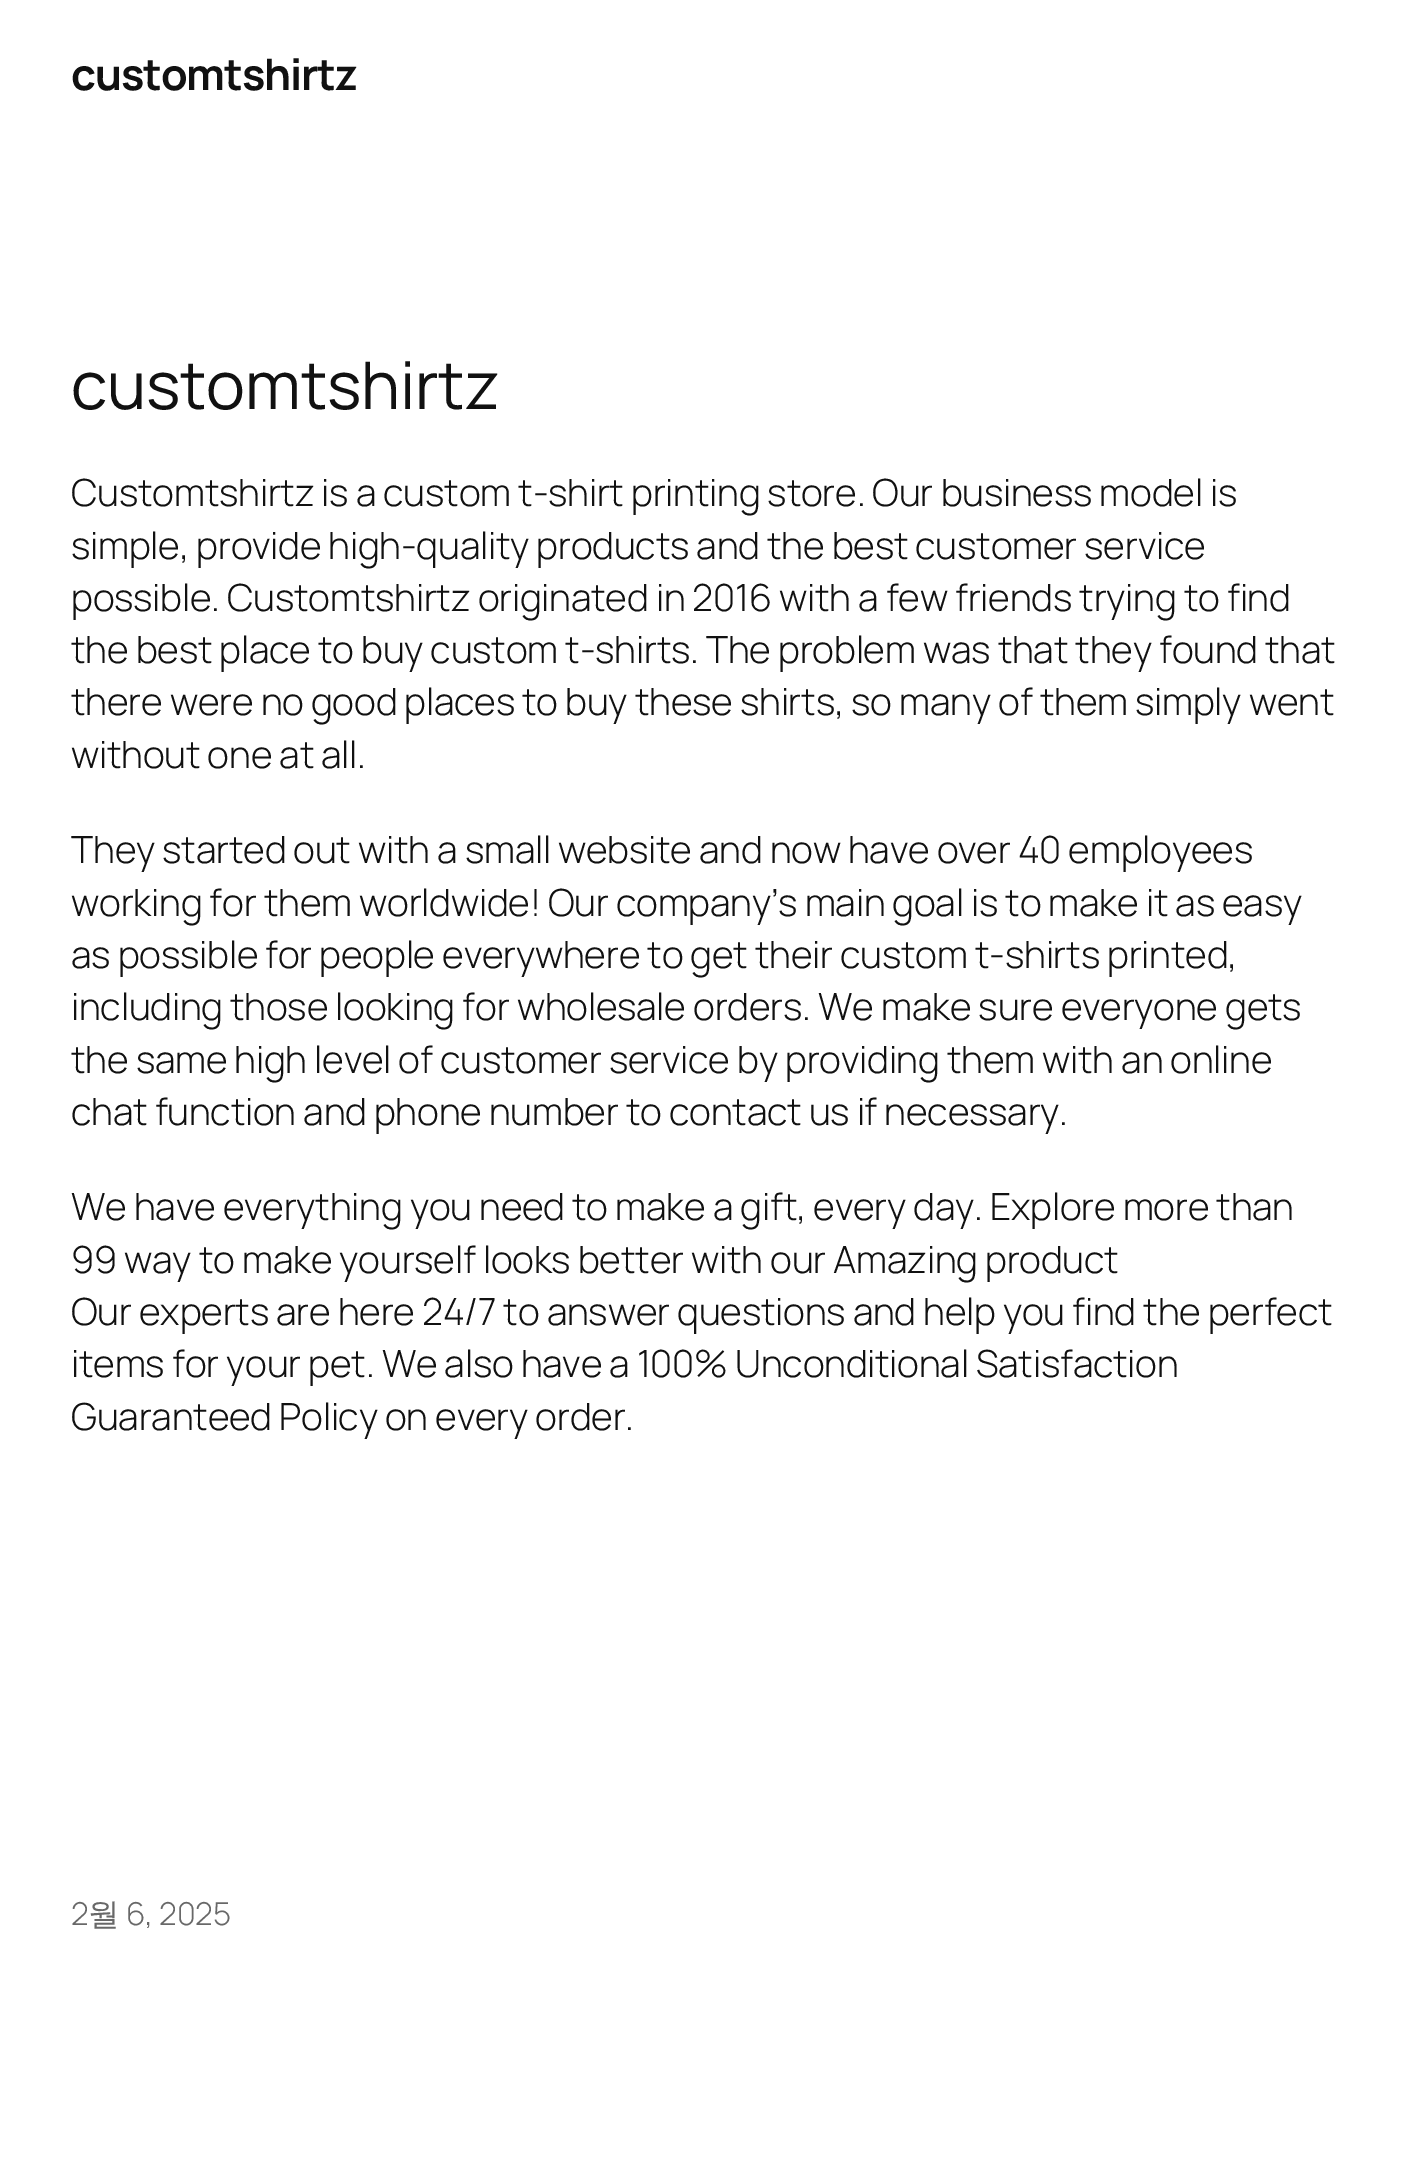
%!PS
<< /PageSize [1415 2158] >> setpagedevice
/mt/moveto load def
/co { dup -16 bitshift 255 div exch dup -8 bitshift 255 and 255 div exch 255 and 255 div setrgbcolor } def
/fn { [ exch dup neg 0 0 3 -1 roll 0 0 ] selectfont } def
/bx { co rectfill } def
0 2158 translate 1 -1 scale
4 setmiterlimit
0 0 1415 2158 16#FFFFFF bx
/Manrope-Bold 43.25 fn
16#111111 co
71 90 mt -1.1 0 (customtshirtz) ashow
/Manrope-Regular 65.75 fn
71 409 mt -.23 0 (customtshirtz) ashow
/Manrope-Light 37.35 fn
71 506 mt -.23 0 (Customtshirtz is a custom t-shirt printing store. Our business model is) ashow
71 559 mt -.23 0 (simple, provide high-quality products and the best customer service) ashow
71 611 mt -.23 0 (possible. Customtshirtz originated in 2016 with a few friends trying to find) ashow
71 663 mt -.23 0 (the best place to buy custom t-shirts. The problem was that they found that) ashow
71 715 mt -.23 0 (there were no good places to buy these shirts, so many of them simply went) ashow
71 768 mt -.23 0 (without one at all.) ashow
71 863 mt -.23 0 (They started out with a small website and now have over 40 employees) ashow
71 916 mt -.23 0 (working for them worldwide! Our company’s main goal is to make it as easy) ashow
71 968 mt -.23 0 (as possible for people everywhere to get their custom t-shirts printed,) ashow
71 1020 mt -.23 0 (including those looking for wholesale orders. We make sure everyone gets) ashow
71 1073 mt -.23 0 (the same high level of customer service by providing them with an online) ashow
71 1125 mt -.23 0 (chat function and phone number to contact us if necessary.) ashow
71 1220 mt -.23 0 (We have everything you need to make a gift, every day. Explore more than) ashow
71 1273 mt -.23 0 (99 way to make yourself looks better with our Amazing product) ashow
71 1325 mt -.23 0 (Our experts are here 24/7 to answer questions and help you find the perfect) ashow
71 1377 mt -.23 0 (items for your pet. We also have a 100% Unconditional Satisfaction) ashow
71 1430 mt -.23 0 (Guaranteed Policy on every order.) ashow
/Manrope-Light 31.5 fn
16#686868 co
71 1925 mt -.23 0 (2) ashow
/WenQuanYiZenHei-Medium 31.5 fn
88 1925 mt -.23 0 (월) ashow
/Manrope-Light 31.5 fn
126 1925 mt -.23 0 (6, 2025) ashow
showpage
